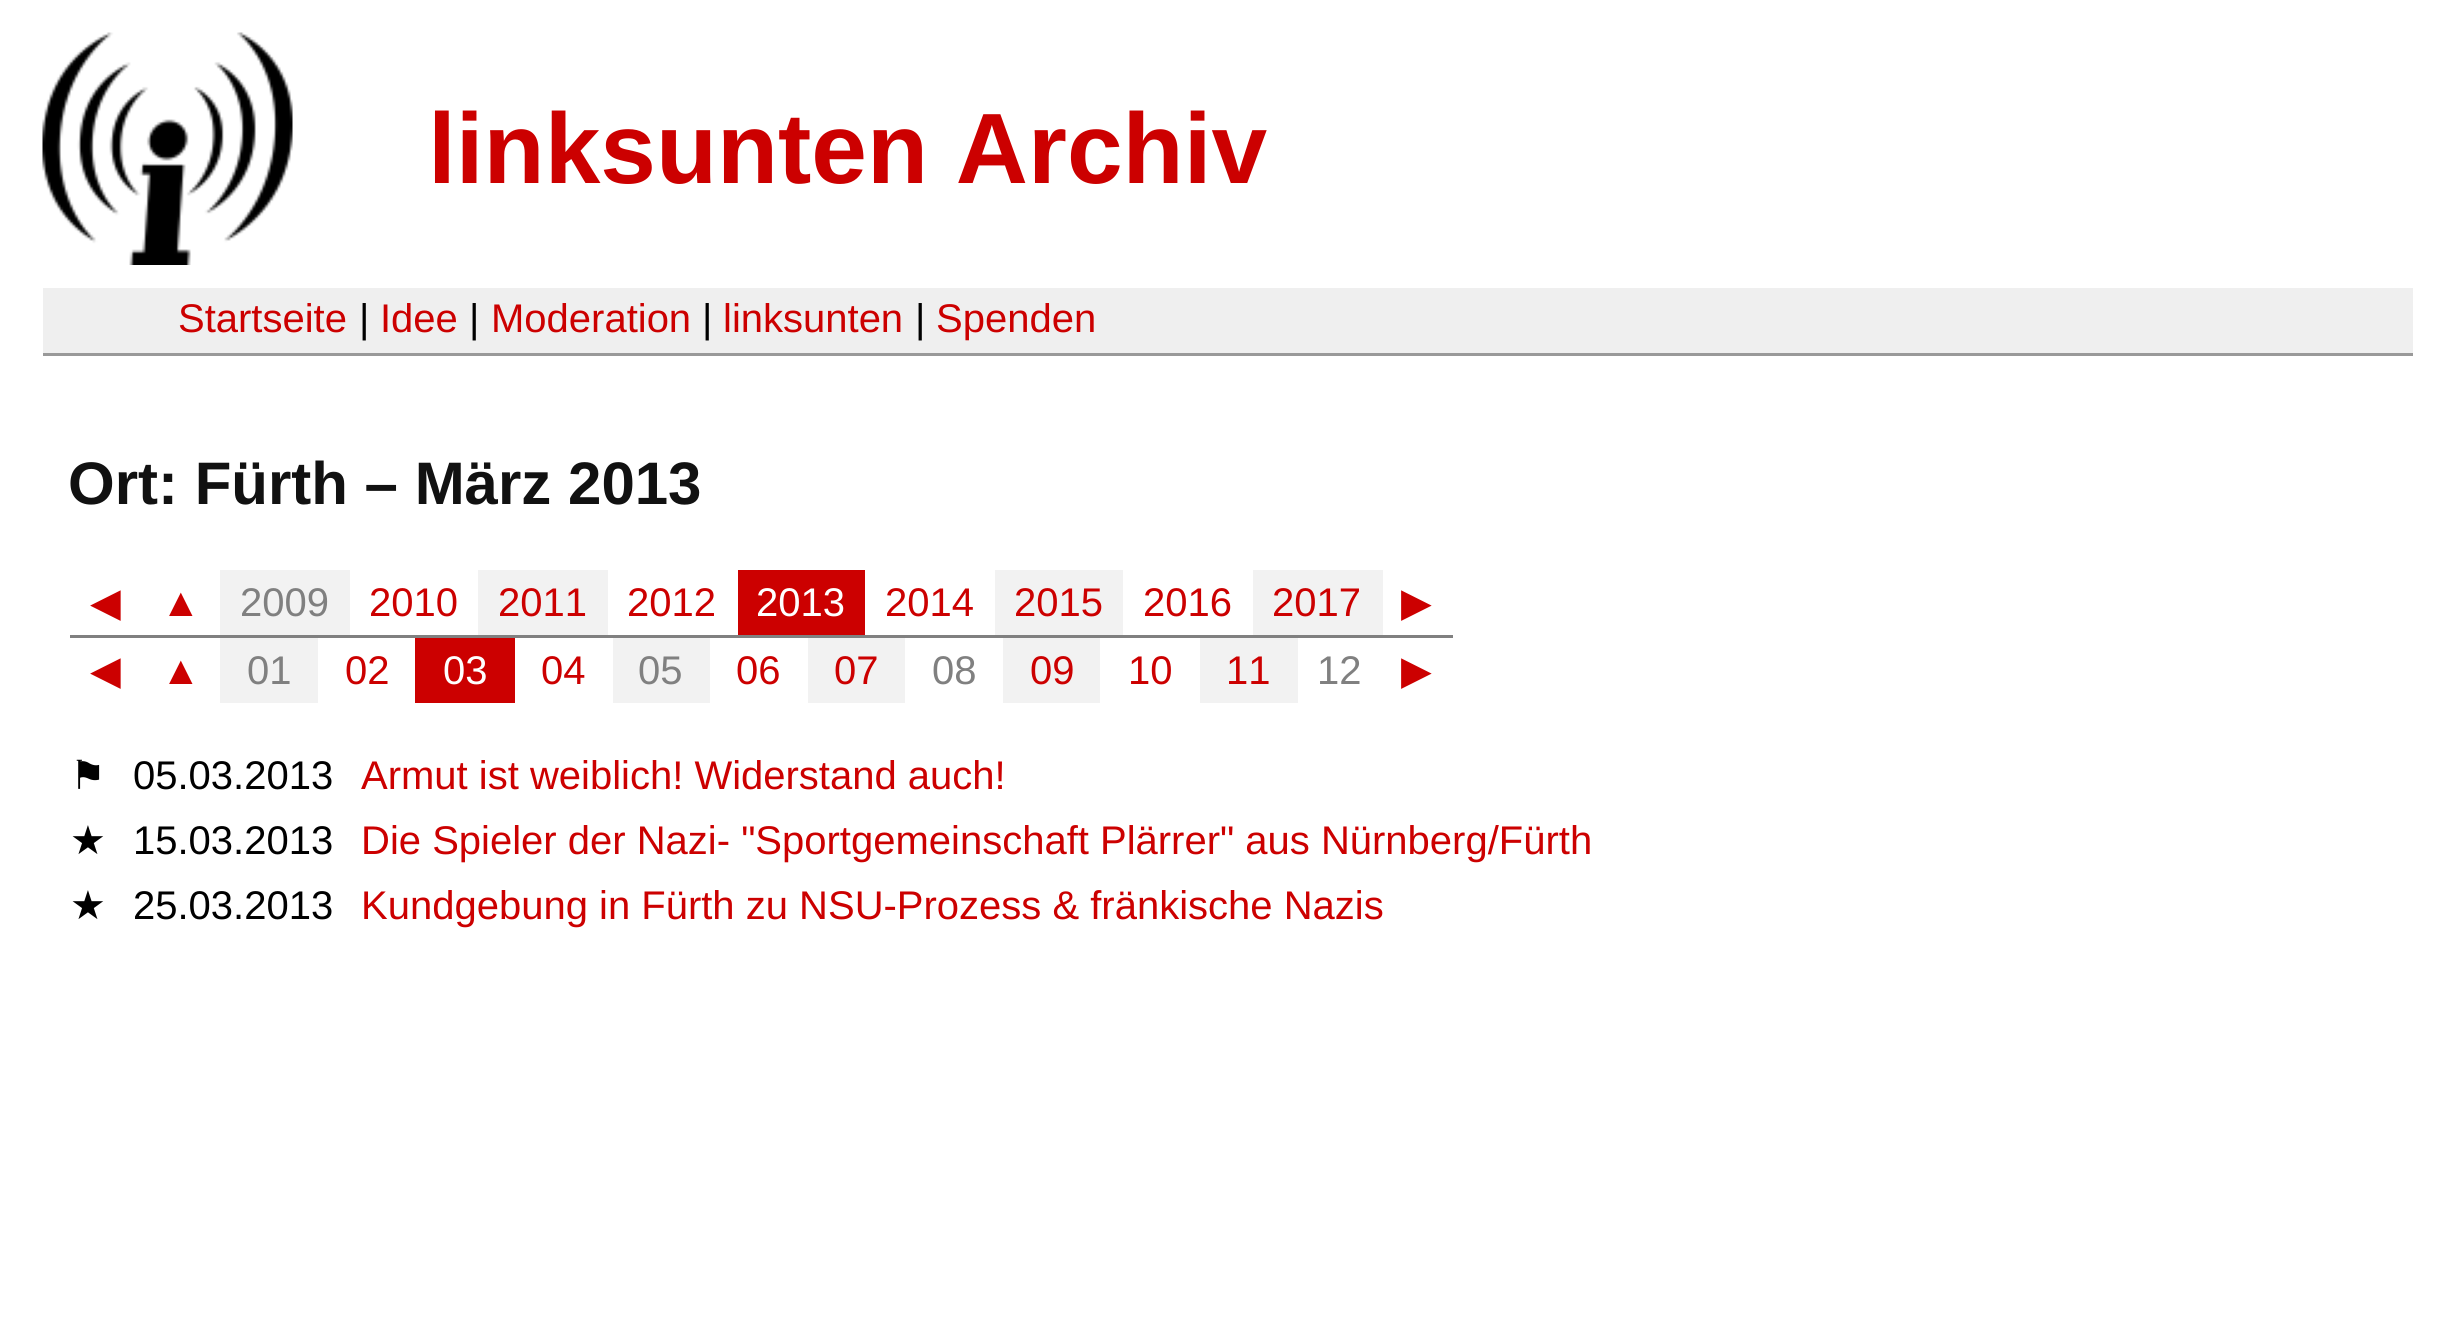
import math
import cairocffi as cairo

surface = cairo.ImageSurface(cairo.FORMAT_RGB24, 2455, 1320)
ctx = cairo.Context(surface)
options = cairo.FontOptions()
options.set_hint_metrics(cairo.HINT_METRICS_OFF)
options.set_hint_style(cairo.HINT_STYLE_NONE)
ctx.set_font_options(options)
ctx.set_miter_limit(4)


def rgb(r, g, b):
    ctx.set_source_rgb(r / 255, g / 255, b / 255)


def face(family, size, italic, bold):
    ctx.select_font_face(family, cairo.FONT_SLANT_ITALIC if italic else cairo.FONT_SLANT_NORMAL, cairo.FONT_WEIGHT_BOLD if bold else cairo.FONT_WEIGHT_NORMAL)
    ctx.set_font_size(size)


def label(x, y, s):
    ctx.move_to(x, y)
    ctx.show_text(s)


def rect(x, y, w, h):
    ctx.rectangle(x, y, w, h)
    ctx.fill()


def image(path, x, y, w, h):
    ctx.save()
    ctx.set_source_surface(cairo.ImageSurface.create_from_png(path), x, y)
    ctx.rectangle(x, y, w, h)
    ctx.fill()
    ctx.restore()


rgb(255, 255, 255)
ctx.paint()
image('image0.png', 42, 32, 251, 233)
face('Liberation Sans', 100, 0, 1)
rgb(204, 0, 0)
label(428, 183, 'linksunten Archiv')
rgb(239, 239, 239)
rect(43, 288, 2370, 65)
rgb(153, 153, 153)
rect(43, 353, 2370, 3)
face('Liberation Sans', 40, 0, 0)
rgb(204, 0, 0)
label(178, 332, 'Startseite')
rgb(0, 0, 0)
label(359, 332, '|')
rgb(204, 0, 0)
label(380, 332, 'Idee')
rgb(0, 0, 0)
label(469, 332, '|')
rgb(204, 0, 0)
label(491, 332, 'Moderation')
rgb(0, 0, 0)
label(702, 332, '|')
rgb(204, 0, 0)
label(723, 332, 'linksunten')
rgb(0, 0, 0)
label(915, 332, '|')
rgb(204, 0, 0)
label(936, 332, 'Spenden')
face('Liberation Sans', 60, 0, 1)
rgb(17, 17, 17)
label(68, 504, 'Ort: Fürth – März 2013')
rgb(128, 128, 128)
rect(70, 635, 1383, 3)
face('DejaVu Sans', 40, 0, 0)
rgb(204, 0, 0)
label(90, 616, '◀')
face('Liberation Sans', 40, 0, 0)
label(161, 616, '▲')
rgb(242, 242, 242)
rect(220, 570, 130, 65)
rgb(128, 128, 128)
label(240, 616, '2009')
rgb(204, 0, 0)
label(369, 616, '2010')
rgb(242, 242, 242)
rect(478, 570, 130, 65)
rgb(204, 0, 0)
label(498, 616, '2011')
label(627, 616, '2012')
rect(738, 570, 127, 65)
rgb(255, 255, 255)
label(756, 616, '2013')
rgb(204, 0, 0)
label(885, 616, '2014')
rgb(242, 242, 242)
rect(995, 570, 128, 65)
rgb(204, 0, 0)
label(1014, 616, '2015')
label(1143, 616, '2016')
rgb(242, 242, 242)
rect(1253, 570, 130, 65)
rgb(204, 0, 0)
label(1272, 616, '2017')
face('DejaVu Sans', 40, 0, 0)
label(1401, 616, '▶')
label(90, 684, '◀')
face('Liberation Sans', 40, 0, 0)
label(161, 684, '▲')
rgb(242, 242, 242)
rect(220, 638, 98, 65)
rgb(128, 128, 128)
label(247, 684, '01')
rgb(204, 0, 0)
label(345, 684, '02')
rect(415, 638, 100, 65)
rgb(255, 255, 255)
label(443, 684, '03')
rgb(204, 0, 0)
label(541, 684, '04')
rgb(242, 242, 242)
rect(613, 638, 97, 65)
rgb(128, 128, 128)
label(638, 684, '05')
rgb(204, 0, 0)
label(736, 684, '06')
rgb(242, 242, 242)
rect(808, 638, 97, 65)
rgb(204, 0, 0)
label(834, 684, '07')
rgb(128, 128, 128)
label(932, 684, '08')
rgb(242, 242, 242)
rect(1003, 638, 97, 65)
rgb(204, 0, 0)
label(1030, 684, '09')
label(1128, 684, '10')
rgb(242, 242, 242)
rect(1200, 638, 98, 65)
rgb(204, 0, 0)
label(1226, 684, '11')
rgb(128, 128, 128)
label(1317, 684, '12')
face('DejaVu Sans', 40, 0, 0)
rgb(204, 0, 0)
label(1401, 684, '▶')
rgb(0, 0, 0)
label(70, 789, '⚑')
face('Liberation Sans', 40, 0, 0)
label(133, 789, '05.03.2013')
rgb(204, 0, 0)
label(361, 789, 'Armut ist weiblich! Widerstand auch!')
face('DejaVu Sans', 40, 0, 0)
rgb(0, 0, 0)
label(70, 854, '★')
face('Liberation Sans', 40, 0, 0)
label(133, 854, '15.03.2013')
rgb(204, 0, 0)
label(361, 854, 'Die Spieler der Nazi- "Sportgemeinschaft Plärrer" aus Nürnberg/Fürth')
face('DejaVu Sans', 40, 0, 0)
rgb(0, 0, 0)
label(70, 919, '★')
face('Liberation Sans', 40, 0, 0)
label(133, 919, '25.03.2013')
rgb(204, 0, 0)
label(361, 919, 'Kundgebung in Fürth zu NSU-Prozess & fränkische Nazis')
surface.write_to_png('render.png')
